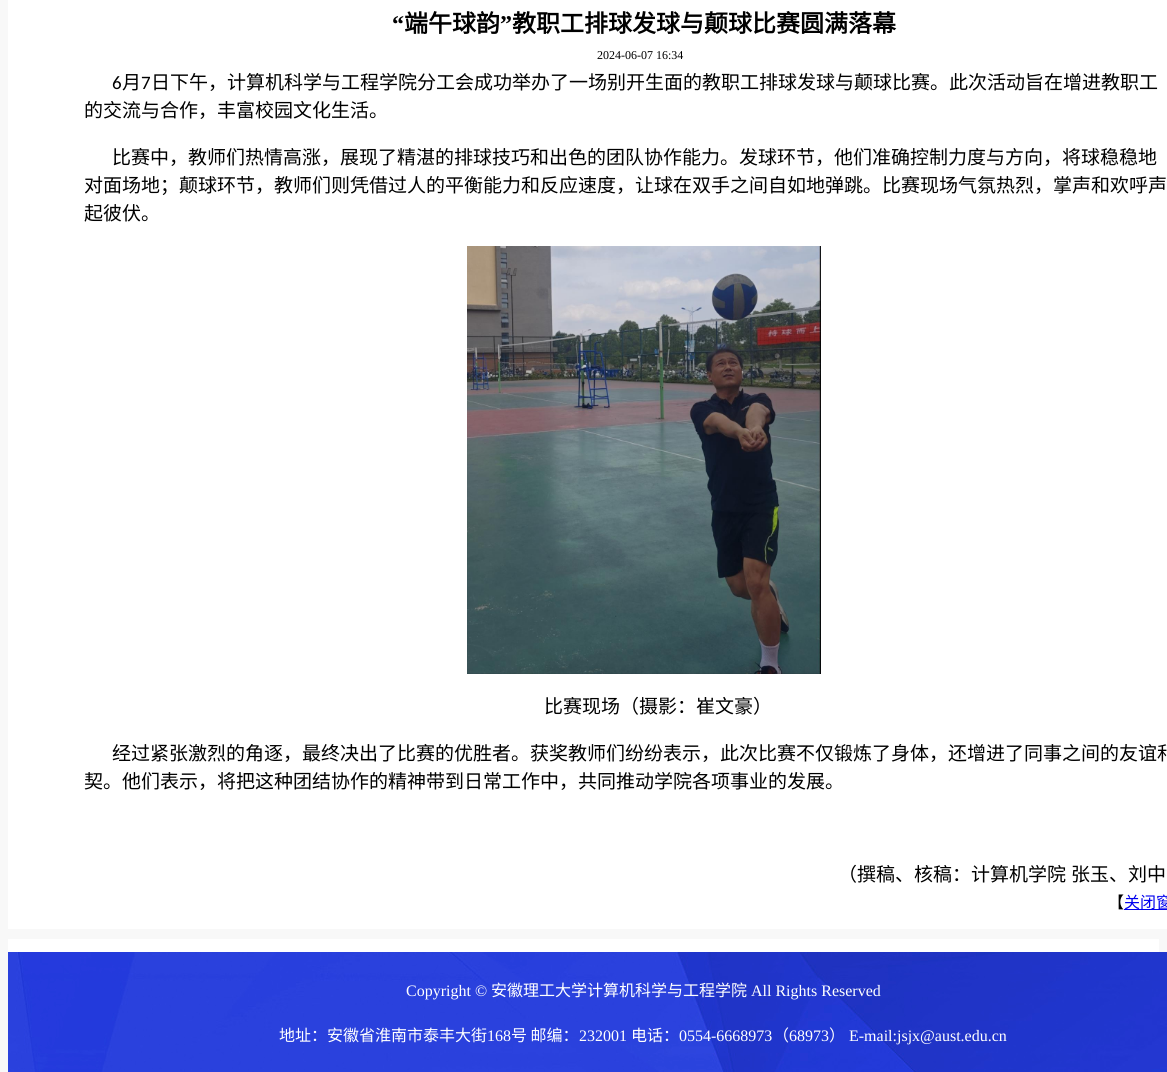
import math
import cairocffi as cairo

surface = cairo.ImageSurface(cairo.FORMAT_RGB24, 1167, 1072)
ctx = cairo.Context(surface)
options = cairo.FontOptions()
options.set_hint_metrics(cairo.HINT_METRICS_OFF)
options.set_hint_style(cairo.HINT_STYLE_NONE)
ctx.set_font_options(options)
ctx.set_miter_limit(4)


def rgb(r, g, b):
    ctx.set_source_rgb(r / 255, g / 255, b / 255)


def face(family, size, italic, bold):
    ctx.select_font_face(family, cairo.FONT_SLANT_ITALIC if italic else cairo.FONT_SLANT_NORMAL, cairo.FONT_WEIGHT_BOLD if bold else cairo.FONT_WEIGHT_NORMAL)
    ctx.set_font_size(size)


def label(x, y, s):
    ctx.move_to(x, y)
    ctx.show_text(s)


def rect(x, y, w, h):
    ctx.rectangle(x, y, w, h)
    ctx.fill()


def image(path, x, y, w, h):
    ctx.save()
    ctx.set_source_surface(cairo.ImageSurface.create_from_png(path), x, y)
    ctx.rectangle(x, y, w, h)
    ctx.fill()
    ctx.restore()


rgb(248, 248, 248)
ctx.paint()
rgb(255, 255, 255)
rect(8, 0, 1159, 929)
face('Liberation Serif', 24, 0, 1)
rgb(0, 0, 0)
label(392, 32, '“')
face('Noto Sans CJK SC', 24, 0, 1)
label(404, 32, '端午球韵')
face('Liberation Serif', 24, 0, 1)
label(500, 32, '”')
face('Noto Sans CJK SC', 24, 0, 1)
label(512, 32, '教职工排球发球与颠球比赛圆满落幕')
face('Liberation Serif', 12, 0, 0)
label(597, 59, '2024-06-07 16:34')
face('Carlito', 19, 0, 0)
label(112, 89, '6')
face('Noto Sans CJK SC', 19, 0, 0)
label(122, 89, '月')
face('Carlito', 19, 0, 0)
label(141, 89, '7')
face('Noto Sans CJK SC', 19, 0, 0)
label(151, 89, '日下午，计算机科学与工程学院分工会成功举办了一场别开生面的教职工排球发球与颠球比赛。此次活动旨在增进教职工')
label(84, 117, '的交流与合作，丰富校园文化生活。')
label(112, 164, '比赛中，教师们热情高涨，展现了精湛的排球技巧和出色的团队协作能力。发球环节，他们准确控制力度与方向，将球稳稳地')
label(84, 192, '对面场地；颠球环节，教师们则凭借过人的平衡能力和反应速度，让球在双手之间自如地弹跳。比赛现场气氛热烈，掌声和欢呼声')
label(84, 220, '起彼伏。')
image('image0.png', 467, 246, 354, 428)
label(544, 713, '比赛现场（摄影：崔文豪）')
label(112, 760, '经过紧张激烈的角逐，最终决出了比赛的优胜者。获奖教师们纷纷表示，此次比赛不仅锻炼了身体，还增进了同事之间的友谊和')
label(84, 788, '契。他们表示，将把这种团结协作的精神带到日常工作中，共同推动学院各项事业的发展。')
label(838, 881, '（撰稿、核稿：计算机学院')
label(1071, 881, '张玉、刘中')
face('Noto Sans CJK SC', 16, 0, 0)
label(1108, 908, '【')
rgb(0, 0, 238)
rect(1124, 909, 43, 1)
label(1124, 908, '关闭窗')
rgb(255, 255, 255)
rect(8, 939, 1151, 13)
image('image1.png', 8, 952, 1159, 120)
face('Liberation Serif', 16, 0, 0)
label(406, 996, 'Copyright ©')
face('Noto Sans CJK SC', 16, 0, 0)
label(491, 996, '安徽理工大学计算机科学与工程学院')
face('Liberation Serif', 16, 0, 0)
label(751, 996, 'All Rights Reserved')
face('Noto Sans CJK SC', 16, 0, 0)
label(279, 1041, '地址：安徽省淮南市泰丰大街')
face('Liberation Serif', 16, 0, 0)
label(487, 1041, '168')
face('Noto Sans CJK SC', 16, 0, 0)
label(511, 1041, '号 邮编：')
face('Liberation Serif', 16, 0, 0)
label(579, 1041, '232001')
face('Noto Sans CJK SC', 16, 0, 0)
label(631, 1041, '电话：')
face('Liberation Serif', 16, 0, 0)
label(679, 1041, '0554-6668973')
face('Noto Sans CJK SC', 16, 0, 0)
label(773, 1041, '（')
face('Liberation Serif', 16, 0, 0)
label(789, 1041, '68973')
face('Noto Sans CJK SC', 16, 0, 0)
label(829, 1041, '）')
face('Liberation Serif', 16, 0, 0)
label(849, 1041, 'E-mail:jsjx@aust.edu.cn')
surface.write_to_png('render.png')
